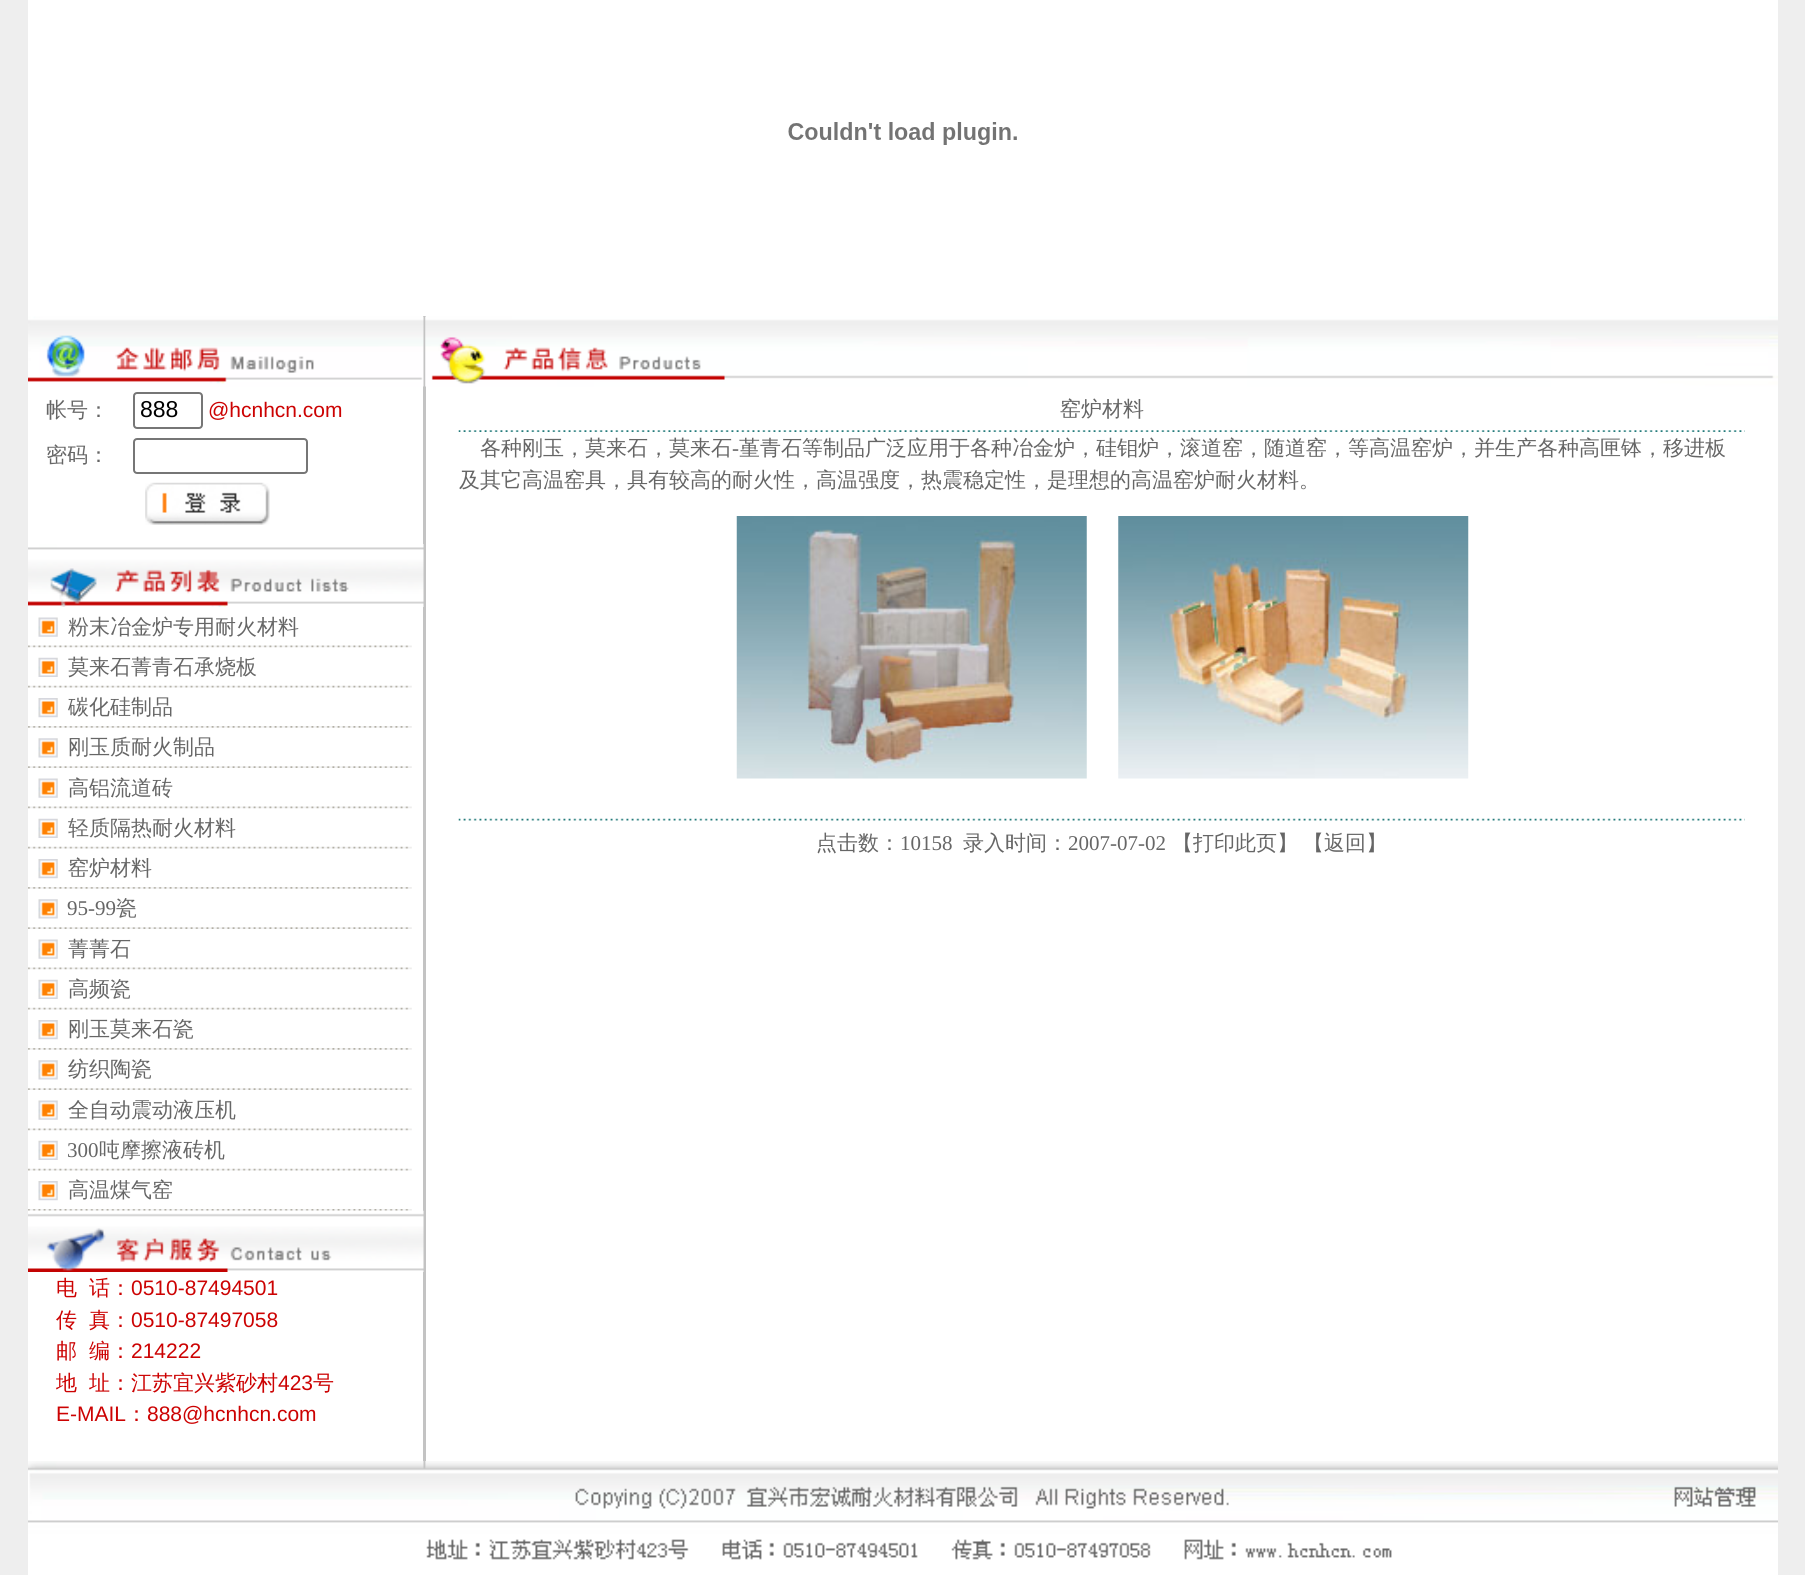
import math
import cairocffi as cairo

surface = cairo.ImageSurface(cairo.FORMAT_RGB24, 1805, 1575)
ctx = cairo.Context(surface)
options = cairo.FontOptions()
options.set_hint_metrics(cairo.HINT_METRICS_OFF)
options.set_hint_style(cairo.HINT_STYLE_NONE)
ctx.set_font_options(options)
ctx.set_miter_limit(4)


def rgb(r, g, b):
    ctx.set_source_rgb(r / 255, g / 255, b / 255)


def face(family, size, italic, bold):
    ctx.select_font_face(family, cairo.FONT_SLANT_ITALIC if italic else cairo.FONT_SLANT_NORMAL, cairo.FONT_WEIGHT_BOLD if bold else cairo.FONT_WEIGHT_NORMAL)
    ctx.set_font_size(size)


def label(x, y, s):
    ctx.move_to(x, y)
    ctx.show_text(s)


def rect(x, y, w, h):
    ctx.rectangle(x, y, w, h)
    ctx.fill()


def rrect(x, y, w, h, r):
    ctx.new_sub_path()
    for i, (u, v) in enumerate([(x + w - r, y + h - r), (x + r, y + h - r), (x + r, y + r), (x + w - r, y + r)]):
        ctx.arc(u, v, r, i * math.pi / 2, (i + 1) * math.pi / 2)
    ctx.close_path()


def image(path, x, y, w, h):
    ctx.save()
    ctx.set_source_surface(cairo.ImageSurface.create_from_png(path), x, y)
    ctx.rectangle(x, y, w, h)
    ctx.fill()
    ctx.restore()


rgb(238, 238, 238)
ctx.paint()
rgb(255, 255, 255)
rect(28, 0, 1750, 317)
image('image0.png', 788, 122, 229, 23)
rect(28, 386, 1750, 1075)
rgb(195, 195, 195)
rect(423, 316, 3, 1145)
image('image1.png', 28, 316, 396, 71)
face('WenQuanYi Zen Hei Medium', 21, 0, 0)
rgb(102, 102, 102)
label(46, 417, '帐号：')
rrect(134, 393, 68, 35, 3)
rgb(118, 118, 118)
ctx.stroke()
face('Liberation Sans', 23, 0, 0)
rgb(0, 0, 0)
label(140, 417, '888')
face('Liberation Sans', 21, 0, 0)
rgb(204, 2, 2)
label(208, 417, '@hcnhcn.com')
face('WenQuanYi Zen Hei Medium', 21, 0, 0)
rgb(102, 102, 102)
label(46, 462, '密码：')
rrect(134, 439, 173, 34, 3)
rgb(118, 118, 118)
ctx.stroke()
image('image2.png', 145, 482, 125, 43)
image('image3.png', 28, 544, 396, 63)
image('image4.png', 38, 617, 20, 20)
rgb(102, 102, 102)
label(68, 634, '粉末冶金炉专用耐火材料')
image('image5.png', 28, 645, 384, 3)
image('image6.png', 38, 657, 20, 20)
label(68, 674, '莫来石菁青石承烧板')
image('image7.png', 28, 685, 384, 3)
image('image8.png', 38, 698, 20, 20)
label(68, 714, '碳化硅制品')
image('image9.png', 28, 726, 384, 2)
image('image10.png', 38, 738, 20, 20)
label(68, 754, '刚玉质耐火制品')
image('image11.png', 28, 766, 384, 2)
image('image4.png', 38, 778, 20, 20)
label(68, 795, '高铝流道砖')
image('image5.png', 28, 806, 384, 3)
image('image6.png', 38, 818, 20, 20)
label(68, 835, '轻质隔热耐火材料')
image('image7.png', 28, 846, 384, 3)
image('image8.png', 38, 859, 20, 20)
label(68, 875, '窑炉材料')
image('image9.png', 28, 887, 384, 2)
image('image10.png', 38, 899, 20, 20)
face('Liberation Serif', 21, 0, 0)
label(67, 915, '95-99')
face('WenQuanYi Zen Hei Medium', 21, 0, 0)
label(116, 915, '瓷')
image('image11.png', 28, 927, 384, 2)
image('image4.png', 38, 939, 20, 20)
label(68, 956, '菁菁石')
image('image5.png', 28, 967, 384, 3)
image('image6.png', 38, 979, 20, 20)
label(68, 996, '高频瓷')
image('image7.png', 28, 1007, 384, 3)
image('image8.png', 38, 1020, 20, 20)
label(68, 1036, '刚玉莫来石瓷')
image('image9.png', 28, 1048, 384, 2)
image('image10.png', 38, 1060, 20, 20)
label(68, 1076, '纺织陶瓷')
image('image11.png', 28, 1088, 384, 2)
image('image4.png', 38, 1100, 20, 20)
label(68, 1117, '全自动震动液压机')
image('image5.png', 28, 1128, 384, 3)
image('image6.png', 38, 1140, 20, 20)
face('Liberation Serif', 21, 0, 0)
label(67, 1157, '300')
face('WenQuanYi Zen Hei Medium', 21, 0, 0)
label(99, 1157, '吨摩擦液砖机')
image('image7.png', 28, 1168, 384, 3)
image('image8.png', 38, 1181, 20, 20)
label(68, 1197, '高温煤气窑')
image('image9.png', 28, 1209, 384, 2)
image('image12.png', 28, 1210, 396, 62)
rgb(204, 2, 2)
label(56, 1295, '电')
label(89, 1295, '话：')
face('Liberation Sans', 21, 0, 0)
label(131, 1295, '0510-87494501')
face('WenQuanYi Zen Hei Medium', 21, 0, 0)
label(56, 1327, '传')
label(89, 1327, '真：')
face('Liberation Sans', 21, 0, 0)
label(131, 1327, '0510-87497058')
face('WenQuanYi Zen Hei Medium', 21, 0, 0)
label(56, 1358, '邮')
label(89, 1358, '编：')
face('Liberation Sans', 21, 0, 0)
label(131, 1358, '214222')
face('WenQuanYi Zen Hei Medium', 21, 0, 0)
label(56, 1390, '地')
label(89, 1390, '址：江苏宜兴紫砂村')
face('Liberation Sans', 21, 0, 0)
label(278, 1390, '423')
face('WenQuanYi Zen Hei Medium', 21, 0, 0)
label(313, 1390, '号')
face('Liberation Sans', 21, 0, 0)
label(56, 1421, 'E-MAIL')
face('WenQuanYi Zen Hei Medium', 21, 0, 0)
label(126, 1421, '：')
face('Liberation Sans', 21, 0, 0)
label(147, 1421, '888@hcnhcn.com')
image('image13.png', 425, 316, 1353, 71)
face('WenQuanYi Zen Hei Medium', 21, 0, 0)
rgb(102, 102, 102)
label(1060, 416, '窑炉材料')
image('image14.png', 458, 430, 1287, 2)
label(480, 455, '各种刚玉，莫来石，莫来石')
face('Liberation Serif', 21, 0, 0)
label(732, 455, '-')
face('WenQuanYi Zen Hei Medium', 21, 0, 0)
label(739, 455, '堇青石等制品广泛应用于各种冶金炉，硅钼炉，滚道窑，随道窑，等高温窑炉，并生产各种高匣钵，移进板')
label(459, 487, '及其它高温窑具，具有较高的耐火性，高温强度，热震稳定性，是理想的高温窑炉耐火材料。')
image('image15.png', 736, 516, 351, 263)
image('image16.png', 1118, 516, 351, 263)
image('image17.png', 458, 818, 1287, 3)
label(816, 850, '点击数：')
face('Liberation Serif', 21, 0, 0)
label(900, 850, '10158')
face('WenQuanYi Zen Hei Medium', 21, 0, 0)
label(963, 850, '录入时间：')
face('Liberation Serif', 21, 0, 0)
label(1068, 850, '2007-07-02')
face('WenQuanYi Zen Hei Medium', 21, 0, 0)
label(1172, 850, '【打印此页】')
label(1303, 850, '【返回】')
image('image18.png', 28, 1461, 1750, 114)
surface.write_to_png('render.png')
